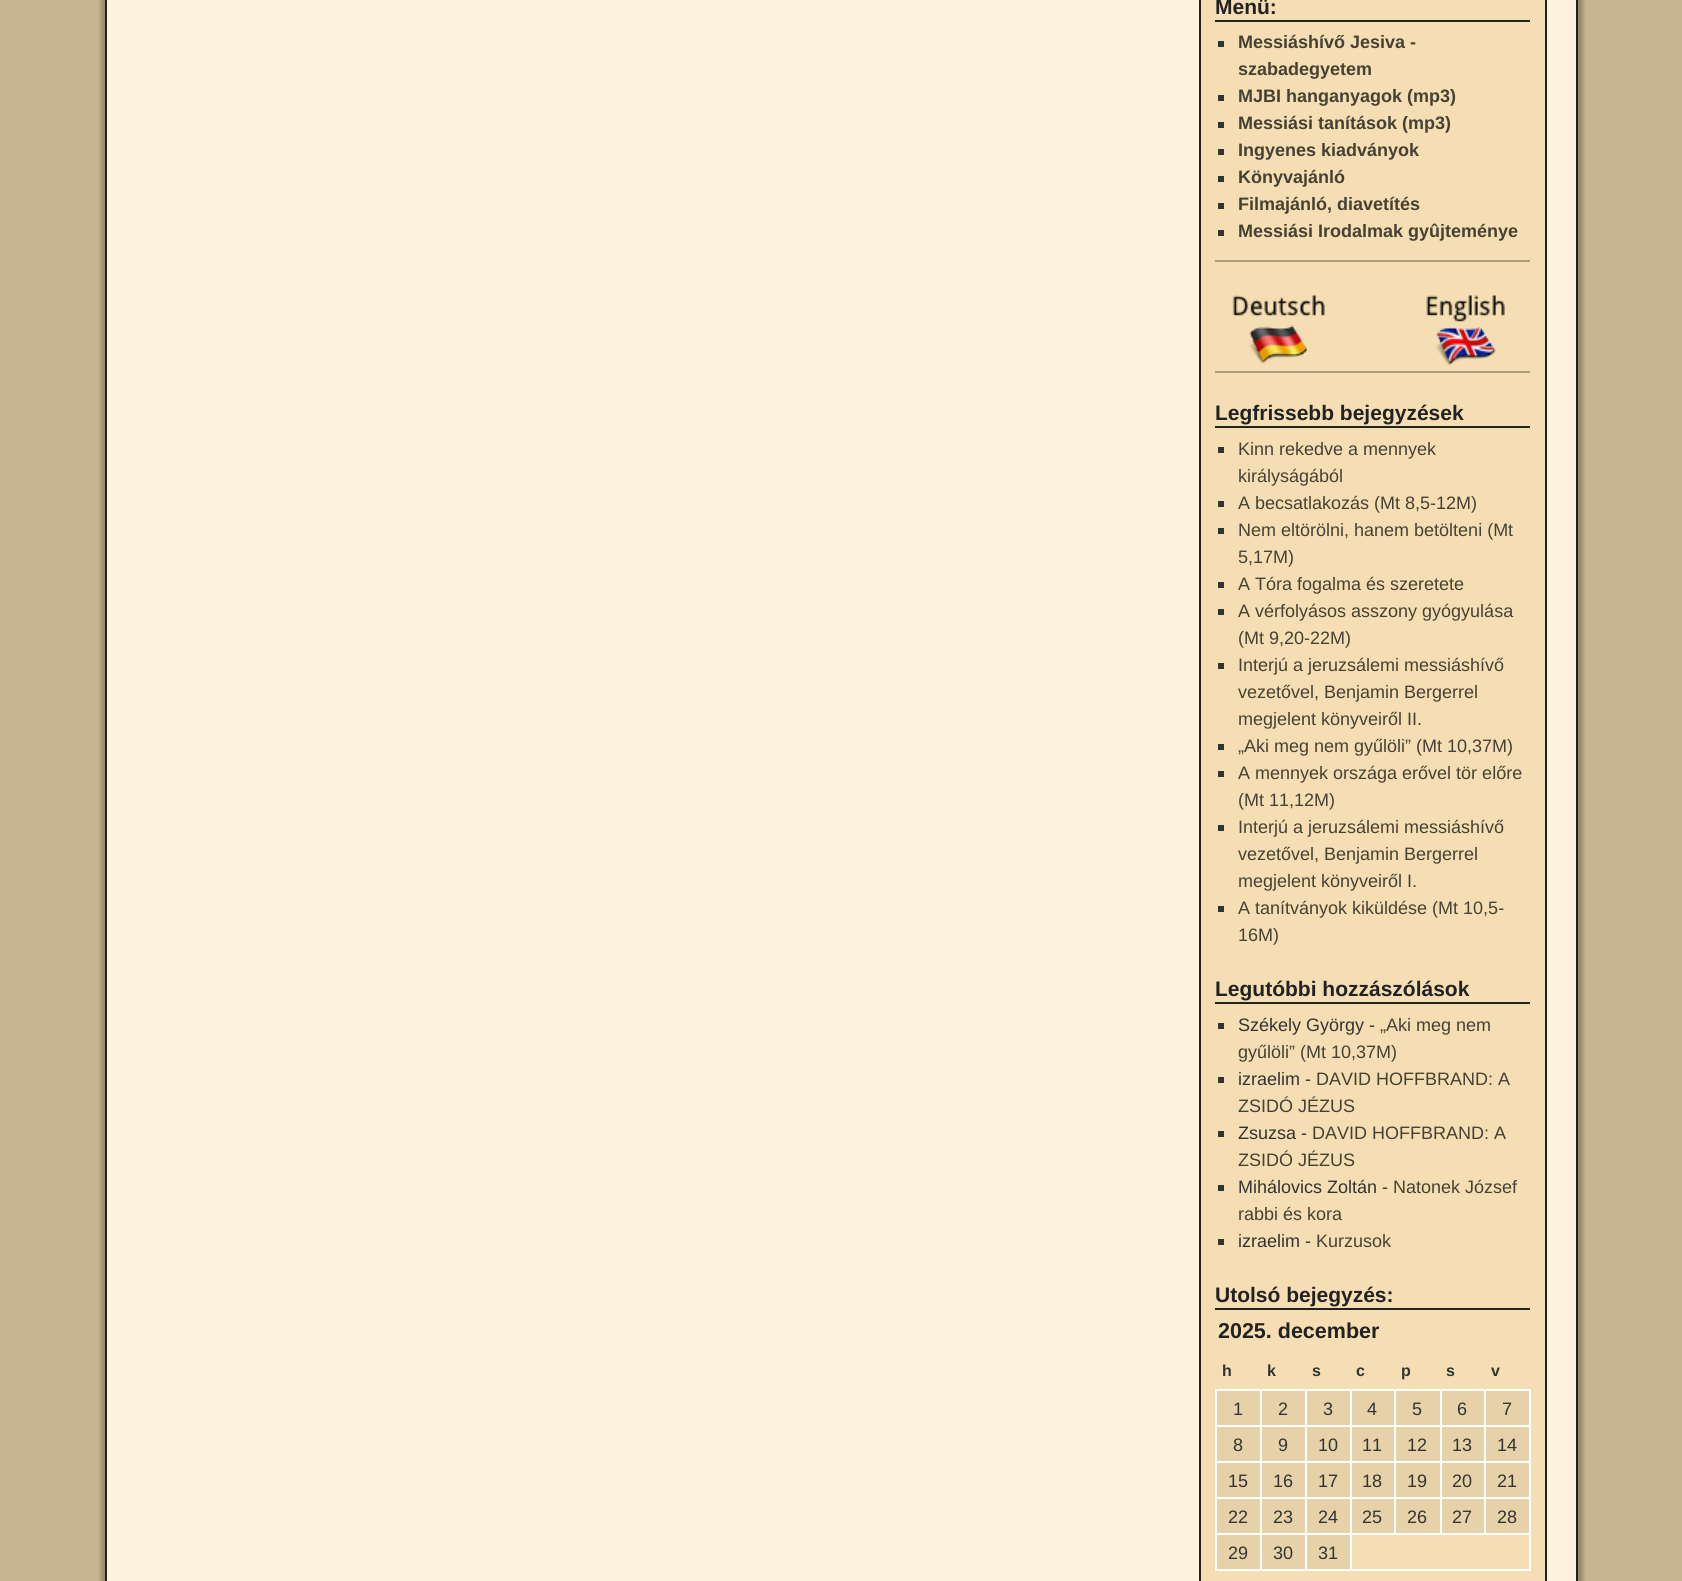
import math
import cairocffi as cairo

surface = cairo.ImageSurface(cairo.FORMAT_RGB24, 1682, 1581)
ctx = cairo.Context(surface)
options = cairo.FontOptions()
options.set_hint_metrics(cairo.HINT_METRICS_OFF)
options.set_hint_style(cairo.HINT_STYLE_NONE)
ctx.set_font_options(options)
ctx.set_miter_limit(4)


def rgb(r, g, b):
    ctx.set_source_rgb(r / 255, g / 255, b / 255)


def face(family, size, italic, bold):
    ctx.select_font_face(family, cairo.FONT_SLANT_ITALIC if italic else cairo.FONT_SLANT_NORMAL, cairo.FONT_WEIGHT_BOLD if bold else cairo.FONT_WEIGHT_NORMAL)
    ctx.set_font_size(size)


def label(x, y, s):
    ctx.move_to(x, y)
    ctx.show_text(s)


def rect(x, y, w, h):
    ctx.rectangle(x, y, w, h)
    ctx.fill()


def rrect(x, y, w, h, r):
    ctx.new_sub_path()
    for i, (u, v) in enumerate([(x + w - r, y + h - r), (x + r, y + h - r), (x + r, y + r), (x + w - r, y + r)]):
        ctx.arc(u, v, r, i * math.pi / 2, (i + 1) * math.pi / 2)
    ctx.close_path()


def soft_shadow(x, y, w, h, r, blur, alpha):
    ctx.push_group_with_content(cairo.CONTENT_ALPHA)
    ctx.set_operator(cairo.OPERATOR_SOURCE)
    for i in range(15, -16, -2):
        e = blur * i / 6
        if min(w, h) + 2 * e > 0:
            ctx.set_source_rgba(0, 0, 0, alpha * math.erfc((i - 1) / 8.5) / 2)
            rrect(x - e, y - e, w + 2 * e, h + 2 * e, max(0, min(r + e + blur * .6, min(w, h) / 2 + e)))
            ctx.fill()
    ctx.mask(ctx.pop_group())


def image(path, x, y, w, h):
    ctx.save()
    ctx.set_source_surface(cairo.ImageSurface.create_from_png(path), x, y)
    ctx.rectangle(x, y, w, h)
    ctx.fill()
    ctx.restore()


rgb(199, 180, 145)
ctx.paint()
rgb(0, 0, 0)
soft_shadow(101, -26, 1482, 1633, 20, 2, 0.25)
rgb(254, 243, 221)
ctx.rectangle(106, -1, 1471, 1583)
ctx.fill_preserve()
rgb(34, 34, 34)
ctx.stroke()
rgb(245, 222, 179)
ctx.rectangle(1200, -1, 346, 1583)
ctx.fill_preserve()
rgb(34, 34, 34)
ctx.stroke()
rect(1215, 20, 315, 2)
face('Liberation Sans', 21, 0, 1)
label(1215, 14, 'Menü:')
rgb(51, 51, 51)
rect(1218, 41, 6, 6)
face('Liberation Sans', 18, 0, 1)
rgb(71, 65, 52)
label(1238, 48, 'Messiáshívő Jesiva -')
label(1238, 75, 'szabadegyetem')
rgb(51, 51, 51)
rect(1218, 95, 6, 6)
rgb(71, 65, 52)
label(1238, 102, 'MJBI hanganyagok (mp3)')
rgb(51, 51, 51)
rect(1218, 122, 6, 6)
rgb(71, 65, 52)
label(1238, 129, 'Messiási tanítások (mp3)')
rgb(51, 51, 51)
rect(1218, 149, 6, 6)
rgb(71, 65, 52)
label(1238, 156, 'Ingyenes kiadványok')
rgb(51, 51, 51)
rect(1218, 176, 6, 6)
rgb(71, 65, 52)
label(1238, 183, 'Könyvajánló')
rgb(51, 51, 51)
rect(1218, 203, 6, 6)
rgb(71, 65, 52)
label(1238, 210, 'Filmajánló, diavetítés')
rgb(51, 51, 51)
rect(1218, 230, 6, 6)
rgb(71, 65, 52)
label(1238, 237, 'Messiási Irodalmak gyûjteménye')
rgb(171, 155, 125)
rect(1215, 260, 315, 2)
image('image0.png', 1232, 295, 93, 69)
image('image1.png', 1426, 295, 79, 70)
rect(1215, 371, 315, 2)
rgb(34, 34, 34)
rect(1215, 426, 315, 2)
face('Liberation Sans', 21, 0, 1)
label(1215, 420, 'Legfrissebb bejegyzések')
rgb(51, 51, 51)
rect(1218, 447, 6, 6)
face('Liberation Sans', 18, 0, 0)
rgb(71, 65, 52)
label(1238, 455, 'Kinn rekedve a mennyek')
label(1238, 482, 'királyságából')
rgb(51, 51, 51)
rect(1218, 501, 6, 6)
rgb(71, 65, 52)
label(1238, 509, 'A becsatlakozás (Mt 8,5-12M)')
rgb(51, 51, 51)
rect(1218, 528, 6, 6)
rgb(71, 65, 52)
label(1238, 536, 'Nem eltörölni, hanem betölteni (Mt')
label(1238, 563, '5,17M)')
rgb(51, 51, 51)
rect(1218, 582, 6, 6)
rgb(71, 65, 52)
label(1238, 590, 'A Tóra fogalma és szeretete')
rgb(51, 51, 51)
rect(1218, 609, 6, 6)
rgb(71, 65, 52)
label(1238, 617, 'A vérfolyásos asszony gyógyulása')
label(1238, 644, '(Mt 9,20-22M)')
rgb(51, 51, 51)
rect(1218, 663, 6, 6)
rgb(71, 65, 52)
label(1238, 671, 'Interjú a jeruzsálemi messiáshívő')
label(1238, 698, 'vezetővel, Benjamin Bergerrel')
label(1238, 725, 'megjelent könyveiről II.')
rgb(51, 51, 51)
rect(1218, 744, 6, 6)
rgb(71, 65, 52)
label(1238, 752, '„Aki meg nem gyűlöli” (Mt 10,37M)')
rgb(51, 51, 51)
rect(1218, 771, 6, 6)
rgb(71, 65, 52)
label(1238, 779, 'A mennyek országa erővel tör előre')
label(1238, 806, '(Mt 11,12M)')
rgb(51, 51, 51)
rect(1218, 825, 6, 6)
rgb(71, 65, 52)
label(1238, 833, 'Interjú a jeruzsálemi messiáshívő')
label(1238, 860, 'vezetővel, Benjamin Bergerrel')
label(1238, 887, 'megjelent könyveiről I.')
rgb(51, 51, 51)
rect(1218, 906, 6, 6)
rgb(71, 65, 52)
label(1238, 914, 'A tanítványok kiküldése (Mt 10,5-')
label(1238, 941, '16M)')
rgb(34, 34, 34)
rect(1215, 1002, 315, 2)
face('Liberation Sans', 21, 0, 1)
label(1215, 996, 'Legutóbbi hozzászólások')
rgb(51, 51, 51)
rect(1218, 1023, 6, 6)
face('Liberation Sans', 18, 0, 0)
label(1238, 1031, 'Székely György -')
rgb(71, 65, 52)
label(1380, 1031, '„Aki meg nem')
label(1238, 1058, 'gyűlöli” (Mt 10,37M)')
rgb(51, 51, 51)
rect(1218, 1077, 6, 6)
label(1238, 1085, 'izraelim -')
rgb(71, 65, 52)
label(1316, 1085, 'DAVID HOFFBRAND: A')
label(1238, 1112, 'ZSIDÓ JÉZUS')
rgb(51, 51, 51)
rect(1218, 1131, 6, 6)
label(1238, 1139, 'Zsuzsa -')
rgb(71, 65, 52)
label(1312, 1139, 'DAVID HOFFBRAND: A')
label(1238, 1166, 'ZSIDÓ JÉZUS')
rgb(51, 51, 51)
rect(1218, 1185, 6, 6)
label(1238, 1193, 'Mihálovics Zoltán -')
rgb(71, 65, 52)
label(1393, 1193, 'Natonek József')
label(1238, 1220, 'rabbi és kora')
rgb(51, 51, 51)
rect(1218, 1239, 6, 6)
label(1238, 1247, 'izraelim -')
rgb(71, 65, 52)
label(1316, 1247, 'Kurzusok')
rgb(34, 34, 34)
rect(1215, 1308, 315, 2)
face('Liberation Sans', 21, 0, 1)
label(1215, 1302, 'Utolsó bejegyzés:')
face('Liberation Sans', 21.5, 0, 1)
label(1218, 1338, '2025. december')
face('Liberation Sans', 16, 0, 1)
rgb(51, 51, 51)
label(1222, 1376, 'h')
label(1267, 1376, 'k')
label(1312, 1376, 's')
label(1356, 1376, 'c')
label(1401, 1376, 'p')
label(1446, 1376, 's')
label(1491, 1376, 'v')
rgb(230, 209, 168)
rect(1217, 1391, 43, 34)
rgb(255, 255, 255)
rect(1484, 1389, 46, 2)
rect(1484, 1425, 46, 2)
rect(1484, 1461, 46, 2)
rect(1484, 1497, 46, 2)
rect(1350, 1533, 180, 2)
rect(1484, 1497, 2, 38)
rect(1440, 1497, 45, 2)
rect(1484, 1461, 2, 38)
rect(1440, 1461, 45, 2)
rect(1484, 1425, 2, 38)
rect(1440, 1425, 45, 2)
rect(1484, 1389, 2, 38)
rect(1440, 1389, 45, 2)
rect(1440, 1497, 2, 38)
rect(1394, 1497, 48, 2)
rect(1440, 1461, 2, 38)
rect(1394, 1461, 48, 2)
rect(1440, 1425, 2, 38)
rect(1394, 1425, 48, 2)
rect(1440, 1389, 2, 38)
rect(1394, 1389, 48, 2)
rect(1394, 1497, 2, 38)
rect(1350, 1497, 45, 2)
rect(1394, 1461, 2, 38)
rect(1350, 1461, 45, 2)
rect(1394, 1425, 2, 38)
rect(1350, 1425, 45, 2)
rect(1394, 1389, 2, 38)
rect(1350, 1389, 45, 2)
rect(1529, 1533, 2, 38)
rect(1350, 1569, 180, 2)
rect(1350, 1533, 2, 38)
rect(1305, 1533, 47, 2)
rect(1350, 1497, 2, 38)
rect(1305, 1497, 47, 2)
rect(1350, 1461, 2, 38)
rect(1305, 1461, 47, 2)
rect(1350, 1425, 2, 38)
rect(1305, 1425, 47, 2)
rect(1350, 1389, 2, 38)
rect(1305, 1389, 47, 2)
rect(1305, 1569, 47, 2)
rect(1305, 1533, 2, 38)
rect(1260, 1533, 47, 2)
rect(1305, 1497, 2, 38)
rect(1260, 1497, 47, 2)
rect(1305, 1461, 2, 38)
rect(1260, 1461, 47, 2)
rect(1305, 1425, 2, 38)
rect(1260, 1425, 47, 2)
rect(1305, 1389, 2, 38)
rect(1260, 1389, 47, 2)
rect(1260, 1569, 47, 2)
rect(1260, 1533, 2, 38)
rect(1215, 1533, 47, 2)
rect(1260, 1497, 2, 38)
rect(1215, 1497, 47, 2)
rect(1260, 1461, 2, 38)
rect(1215, 1461, 47, 2)
rect(1260, 1425, 2, 38)
rect(1215, 1425, 47, 2)
rect(1260, 1389, 2, 38)
rect(1215, 1389, 47, 2)
rect(1215, 1569, 47, 2)
rect(1215, 1533, 2, 38)
rect(1215, 1497, 2, 38)
rect(1215, 1461, 2, 38)
rect(1215, 1425, 2, 38)
rect(1215, 1389, 2, 38)
face('Liberation Sans', 18, 0, 0)
rgb(51, 51, 51)
label(1233, 1415, '1')
rgb(230, 209, 168)
rect(1262, 1391, 43, 34)
rgb(51, 51, 51)
label(1278, 1415, '2')
rgb(230, 209, 168)
rect(1307, 1391, 43, 34)
rgb(51, 51, 51)
label(1323, 1415, '3')
rgb(230, 209, 168)
rect(1352, 1391, 42, 34)
rgb(51, 51, 51)
label(1367, 1415, '4')
rgb(230, 209, 168)
rect(1396, 1391, 44, 34)
rgb(51, 51, 51)
label(1412, 1415, '5')
rgb(230, 209, 168)
rect(1442, 1391, 42, 34)
rgb(51, 51, 51)
label(1457, 1415, '6')
rgb(230, 209, 168)
rect(1486, 1391, 43, 34)
rgb(255, 255, 255)
rect(1529, 1497, 2, 38)
rect(1529, 1461, 2, 38)
rect(1529, 1425, 2, 38)
rect(1529, 1389, 2, 38)
rgb(51, 51, 51)
label(1502, 1415, '7')
rgb(230, 209, 168)
rect(1217, 1427, 43, 34)
rgb(51, 51, 51)
label(1233, 1451, '8')
rgb(230, 209, 168)
rect(1262, 1427, 43, 34)
rgb(51, 51, 51)
label(1278, 1451, '9')
rgb(230, 209, 168)
rect(1307, 1427, 43, 34)
rgb(51, 51, 51)
label(1318, 1451, '10')
rgb(230, 209, 168)
rect(1352, 1427, 42, 34)
rgb(51, 51, 51)
label(1362, 1451, '11')
rgb(230, 209, 168)
rect(1396, 1427, 44, 34)
rgb(51, 51, 51)
label(1407, 1451, '12')
rgb(230, 209, 168)
rect(1442, 1427, 42, 34)
rgb(51, 51, 51)
label(1452, 1451, '13')
rgb(230, 209, 168)
rect(1486, 1427, 43, 34)
rgb(51, 51, 51)
label(1497, 1451, '14')
rgb(230, 209, 168)
rect(1217, 1463, 43, 34)
rgb(51, 51, 51)
label(1228, 1487, '15')
rgb(230, 209, 168)
rect(1262, 1463, 43, 34)
rgb(51, 51, 51)
label(1273, 1487, '16')
rgb(230, 209, 168)
rect(1307, 1463, 43, 34)
rgb(51, 51, 51)
label(1318, 1487, '17')
rgb(230, 209, 168)
rect(1352, 1463, 42, 34)
rgb(51, 51, 51)
label(1362, 1487, '18')
rgb(230, 209, 168)
rect(1396, 1463, 44, 34)
rgb(51, 51, 51)
label(1407, 1487, '19')
rgb(230, 209, 168)
rect(1442, 1463, 42, 34)
rgb(51, 51, 51)
label(1452, 1487, '20')
rgb(230, 209, 168)
rect(1486, 1463, 43, 34)
rgb(51, 51, 51)
label(1497, 1487, '21')
rgb(230, 209, 168)
rect(1217, 1499, 43, 34)
rgb(51, 51, 51)
label(1228, 1523, '22')
rgb(230, 209, 168)
rect(1262, 1499, 43, 34)
rgb(51, 51, 51)
label(1273, 1523, '23')
rgb(230, 209, 168)
rect(1307, 1499, 43, 34)
rgb(51, 51, 51)
label(1318, 1523, '24')
rgb(230, 209, 168)
rect(1352, 1499, 42, 34)
rgb(51, 51, 51)
label(1362, 1523, '25')
rgb(230, 209, 168)
rect(1396, 1499, 44, 34)
rgb(51, 51, 51)
label(1407, 1523, '26')
rgb(230, 209, 168)
rect(1442, 1499, 42, 34)
rgb(51, 51, 51)
label(1452, 1523, '27')
rgb(230, 209, 168)
rect(1486, 1499, 43, 34)
rgb(51, 51, 51)
label(1497, 1523, '28')
rgb(230, 209, 168)
rect(1217, 1535, 43, 34)
rgb(51, 51, 51)
label(1228, 1559, '29')
rgb(230, 209, 168)
rect(1262, 1535, 43, 34)
rgb(51, 51, 51)
label(1273, 1559, '30')
rgb(230, 209, 168)
rect(1307, 1535, 43, 34)
rgb(51, 51, 51)
label(1318, 1559, '31')
surface.write_to_png('render.png')
